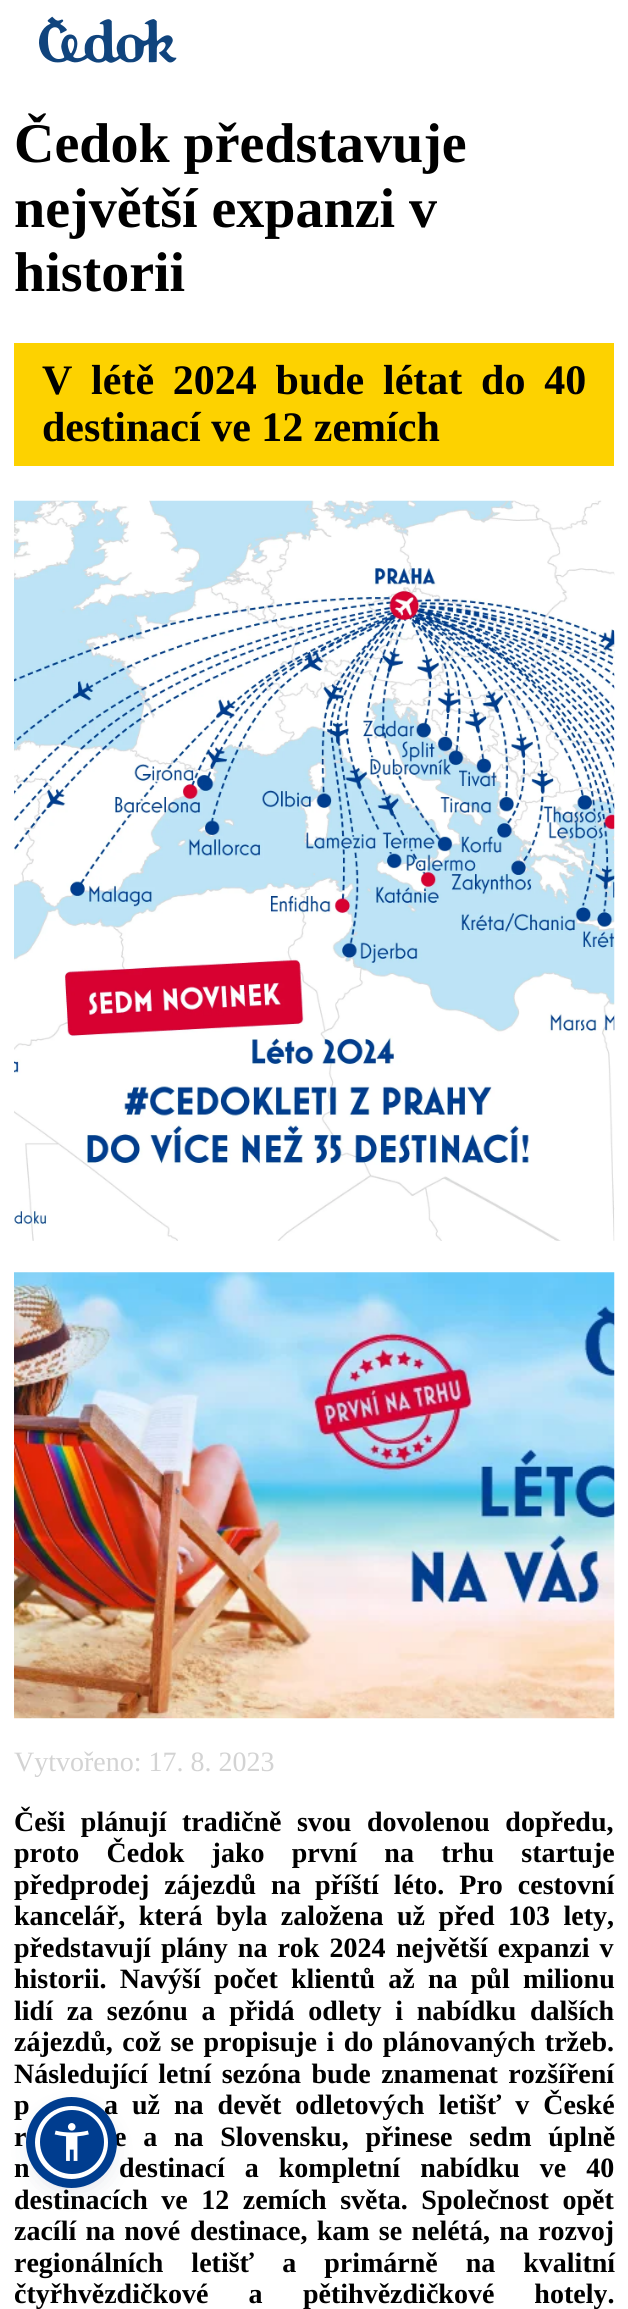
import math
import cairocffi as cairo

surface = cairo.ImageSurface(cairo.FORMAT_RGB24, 628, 2309)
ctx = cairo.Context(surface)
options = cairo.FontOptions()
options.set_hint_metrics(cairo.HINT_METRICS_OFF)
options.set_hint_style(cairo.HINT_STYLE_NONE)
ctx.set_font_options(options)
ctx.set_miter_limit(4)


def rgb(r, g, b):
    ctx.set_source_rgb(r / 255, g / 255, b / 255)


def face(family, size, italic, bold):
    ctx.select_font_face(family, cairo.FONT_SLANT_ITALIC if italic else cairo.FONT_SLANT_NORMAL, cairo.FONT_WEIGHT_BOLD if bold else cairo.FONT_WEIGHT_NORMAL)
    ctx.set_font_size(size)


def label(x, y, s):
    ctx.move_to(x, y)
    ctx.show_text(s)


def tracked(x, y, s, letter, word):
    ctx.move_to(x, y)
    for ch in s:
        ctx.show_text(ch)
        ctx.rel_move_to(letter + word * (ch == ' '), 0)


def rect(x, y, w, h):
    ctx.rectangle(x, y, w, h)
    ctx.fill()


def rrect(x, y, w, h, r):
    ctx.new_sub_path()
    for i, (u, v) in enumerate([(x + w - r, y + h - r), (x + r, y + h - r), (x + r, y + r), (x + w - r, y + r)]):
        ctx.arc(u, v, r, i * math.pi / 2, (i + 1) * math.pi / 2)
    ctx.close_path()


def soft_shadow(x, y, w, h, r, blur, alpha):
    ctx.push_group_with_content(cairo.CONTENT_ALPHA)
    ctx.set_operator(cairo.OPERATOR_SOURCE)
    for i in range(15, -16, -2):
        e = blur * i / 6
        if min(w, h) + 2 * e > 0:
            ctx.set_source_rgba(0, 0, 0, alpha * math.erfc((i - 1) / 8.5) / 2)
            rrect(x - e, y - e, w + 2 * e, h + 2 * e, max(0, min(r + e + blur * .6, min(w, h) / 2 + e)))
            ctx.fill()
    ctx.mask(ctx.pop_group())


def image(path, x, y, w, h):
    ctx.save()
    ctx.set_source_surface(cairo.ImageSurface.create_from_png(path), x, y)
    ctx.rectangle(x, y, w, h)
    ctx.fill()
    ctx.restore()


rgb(255, 255, 255)
ctx.paint()
image('image0.png', 39, 16, 138, 47)
face('Liberation Serif', 56, 0, 1)
rgb(0, 0, 0)
label(14, 162, 'Čedok představuje')
label(14, 227, 'největší expanzi v')
label(14, 291, 'historii')
rgb(253, 210, 0)
rect(14, 343, 600, 123)
face('Liberation Serif', 42, 0, 1)
rgb(0, 0, 0)
tracked(42, 394, 'V létě 2024 bude létat do 40', 0, 8.25)
label(42, 441, 'destinací ve 12 zemích')
image('image1.png', 14, 500, 601, 741)
image('image2.png', 14, 1272, 601, 447)
face('Liberation Serif', 28, 0, 0)
rgb(211, 211, 211)
label(14, 1771, 'Vytvořeno: 17. 8. 2023')
face('Liberation Serif', 28, 0, 1)
rgb(0, 0, 0)
tracked(14, 1831, 'Češi plánují tradičně svou dovolenou dopředu,', 0, 8.5)
tracked(14, 1862, 'proto Čedok jako první na trhu startuje', 0, 20.25)
tracked(14, 1894, 'předprodej zájezdů na', 0, 8)
tracked(315, 1894, 'příští léto. Pro cestovní', 0, 8)
tracked(14, 1925, 'kancelář, která byla založena už před 103 lety,', 0, 6.5)
tracked(14, 1957, 'představují plány na rok 2024', 0, 3)
tracked(396, 1957, 'největší expanzi v', 0, 3)
tracked(14, 1988, 'historii. Navýší počet klientů až na půl milionu', 0, 6.25)
tracked(14, 2020, 'lidí za sezónu a přidá odlety i nabídku', 0, 6.75)
label(530, 2020, 'dalších')
tracked(14, 2051, 'zájezdů, což se propisuje i do plánovaných tržeb.', 0, 2.5)
tracked(14, 2083, 'Následující letní sezóna bude znamenat rozšíření', 0, 3.5)
tracked(14, 2114, 'p', 0, 7)
tracked(104, 2114, 'a už na devět odletových letišť v České', 0, 7)
tracked(14, 2146, 'r', 0, 9.75)
tracked(114, 2146, 'e a na Slovensku, přinese sedm úplně', 0, 9.75)
label(14, 2177, 'n')
tracked(119, 2177, 'destinací a kompletní nabídku ve 40', 0, 13)
tracked(14, 2209, 'destinacích ve 12 zemích světa. Společnost opět', 0, 6.5)
tracked(14, 2240, 'zacílí na nové', 0, 2.25)
tracked(190, 2240, 'destinace, kam se nelétá, na rozvoj', 0, 2.25)
tracked(14, 2272, 'regionálních letišť a primárně na kvalitní', 0, 21)
tracked(14, 2303, 'čtyřhvězdičkové a', 0, 33)
tracked(303, 2303, 'pětihvězdičkové hotely.', 0, 33)
rgb(93, 100, 148)
soft_shadow(35, 2109, 74, 73, 36.5, 3.5, 0.2)
rgb(37, 44, 97)
soft_shadow(35, 2114, 74, 74, 37, 13, 0.15)
rgb(0, 61, 143)
ctx.arc(72, 2142, 34.5, 0, 2 * math.pi)
ctx.fill_preserve()
rgb(255, 255, 255)
ctx.set_line_width(5)
ctx.stroke()
ctx.arc(71.5, 2142.5, 41, 0, 2 * math.pi)
rgb(0, 61, 143)
ctx.set_line_width(9)
ctx.stroke()
image('image3.png', 54, 2123, 35, 38)
surface.write_to_png('render.png')
